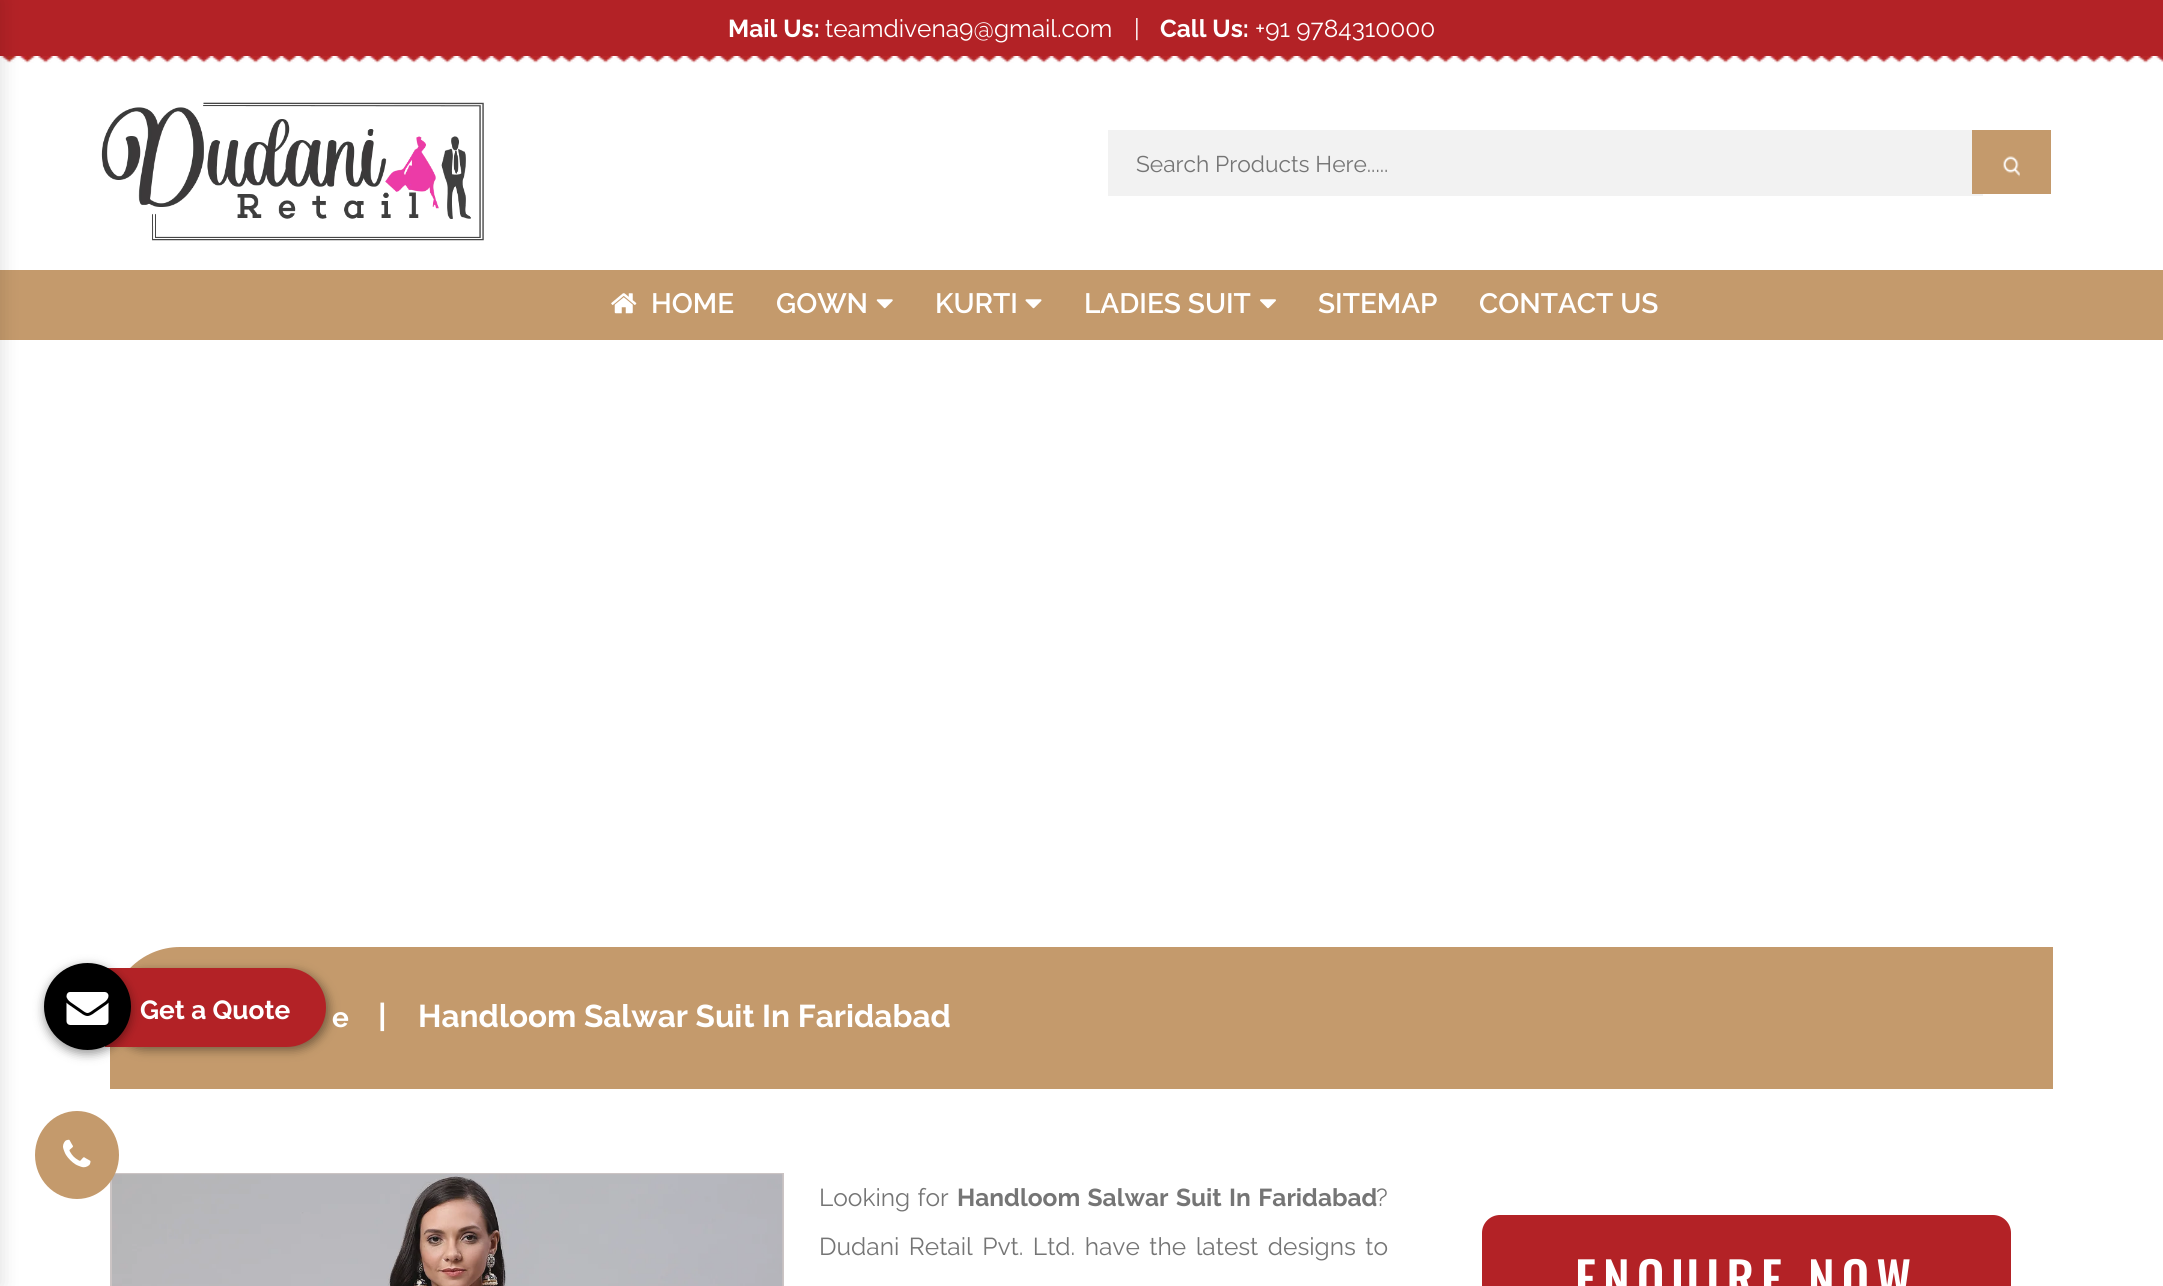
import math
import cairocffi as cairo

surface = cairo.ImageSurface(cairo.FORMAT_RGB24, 2163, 1286)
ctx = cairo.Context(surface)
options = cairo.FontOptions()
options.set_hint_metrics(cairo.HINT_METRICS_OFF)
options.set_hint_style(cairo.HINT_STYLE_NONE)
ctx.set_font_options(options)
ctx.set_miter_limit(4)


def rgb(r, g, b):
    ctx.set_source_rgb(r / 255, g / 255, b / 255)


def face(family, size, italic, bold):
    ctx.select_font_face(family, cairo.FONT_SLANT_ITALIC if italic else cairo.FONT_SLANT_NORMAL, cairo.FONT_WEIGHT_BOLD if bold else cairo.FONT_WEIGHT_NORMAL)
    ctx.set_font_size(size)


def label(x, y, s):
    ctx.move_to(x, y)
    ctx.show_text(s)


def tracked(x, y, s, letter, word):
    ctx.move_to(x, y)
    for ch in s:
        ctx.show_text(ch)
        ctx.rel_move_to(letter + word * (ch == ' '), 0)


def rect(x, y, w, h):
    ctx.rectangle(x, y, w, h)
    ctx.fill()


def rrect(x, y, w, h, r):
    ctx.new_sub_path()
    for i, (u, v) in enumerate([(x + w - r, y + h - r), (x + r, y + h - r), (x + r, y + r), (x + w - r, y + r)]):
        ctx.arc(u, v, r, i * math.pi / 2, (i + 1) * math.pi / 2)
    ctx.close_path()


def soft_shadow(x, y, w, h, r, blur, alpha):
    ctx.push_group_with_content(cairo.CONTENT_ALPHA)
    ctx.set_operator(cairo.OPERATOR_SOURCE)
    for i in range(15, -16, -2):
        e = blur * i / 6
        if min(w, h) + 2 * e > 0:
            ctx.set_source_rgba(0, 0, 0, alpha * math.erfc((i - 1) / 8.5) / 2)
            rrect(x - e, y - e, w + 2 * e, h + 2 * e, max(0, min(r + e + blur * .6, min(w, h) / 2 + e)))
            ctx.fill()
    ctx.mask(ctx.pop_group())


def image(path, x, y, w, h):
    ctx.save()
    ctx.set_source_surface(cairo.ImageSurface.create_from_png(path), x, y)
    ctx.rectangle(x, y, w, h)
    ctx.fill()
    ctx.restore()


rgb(255, 255, 255)
ctx.paint()
rgb(179, 34, 38)
rect(0, 0, 2163, 56)
image('image0.png', 1, 56, 2162, 7)
rgb(196, 154, 108)
rect(0, 270, 2163, 70)
rgb(0, 0, 0)
soft_shadow(-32, 0, 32, 1286, 0, 10.5, 0.14)
face('Raleway', 24.5, 0, 1)
rgb(255, 255, 255)
label(728, 37, 'Mail Us:')
face('Raleway', 24.5, 0, 0)
label(825, 37, 'teamdivena9@gmail.com')
label(1134, 37, '|')
face('Raleway', 24.5, 0, 1)
label(1160, 37, 'Call Us:')
face('Raleway', 24.5, 0, 0)
label(1255, 37, '+91 9784310000')
image('image1.png', 101, 102, 383, 139)
rgb(242, 242, 242)
rect(1108, 130, 875, 66)
face('Raleway', 22.75, 0, 0)
rgb(117, 117, 117)
label(1136, 172, 'Search Products Here.....')
rgb(196, 154, 108)
rect(1972, 130, 79, 64)
image('image2.png', 2003, 156, 17, 21)
image('image3.png', 611, 293, 26, 21)
face('Raleway SemiBold', 28, 0, 0)
rgb(255, 255, 255)
label(651, 313, 'HOME')
label(776, 313, 'GOWN')
image('image4.png', 876, 299, 17, 10)
label(935, 313, 'KURTI')
image('image5.png', 1025, 299, 17, 10)
label(1084, 313, 'LADIES SUIT')
image('image6.png', 1260, 299, 16, 10)
label(1318, 313, 'SITEMAP')
label(1479, 313, 'CONTACT US')
rgb(196, 154, 108)
ctx.new_path()
ctx.move_to(180, 947)
ctx.line_to(2053, 947)
ctx.line_to(2053, 1089)
ctx.line_to(110, 1089)
ctx.line_to(110, 1017)
ctx.curve_to(110, 978.5, 141.5, 947, 180, 947)
ctx.close_path()
ctx.fill()
rgb(0, 0, 0)
soft_shadow(109, 971, 220, 79, 39.5, 5, 0.4)
rgb(179, 34, 38)
ctx.new_path()
ctx.move_to(105, 968)
ctx.line_to(286.5, 968)
ctx.curve_to(308.5, 968, 326, 985.5, 326, 1007.5)
ctx.curve_to(326, 1029.5, 308.5, 1047, 286.5, 1047)
ctx.line_to(105, 1047)
ctx.close_path()
ctx.fill()
rgb(0, 0, 0)
soft_shadow(44, 966, 87, 88, 43.5, 5, 0.4)
rgb(0, 0, 0)
ctx.arc(87.5, 1006.5, 43.5, 0, 2 * math.pi)
ctx.fill()
image('image7.png', 66, 992, 43, 33)
face('Raleway', 26.25, 0, 1)
rgb(255, 255, 255)
label(140, 1019, 'Get a Quote')
face('Raleway', 28, 0, 1)
label(332, 1027, 'e')
face('Raleway', 31.5, 0, 1)
label(378, 1027, '|')
label(418, 1027, 'Handloom Salwar Suit In Faridabad')
ctx.rectangle(111, 1174, 672, 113)
rgb(203, 196, 196)
ctx.stroke()
image('image9.png', 112, 1174, 671, 112)
rgb(196, 154, 108)
ctx.new_path()
ctx.move_to(77, 1111)
ctx.curve_to(100, 1111, 119, 1130.5, 119, 1155)
ctx.curve_to(119, 1179.5, 100, 1199, 77, 1199)
ctx.curve_to(54, 1199, 35, 1179.5, 35, 1155)
ctx.curve_to(35, 1130.5, 54, 1111, 77, 1111)
ctx.close_path()
ctx.fill()
image('image8.png', 63, 1139, 28, 29)
face('Raleway', 24.5, 0, 0)
rgb(117, 117, 117)
tracked(819, 1206, 'Looking for', 0, 1)
face('Raleway', 24.5, 0, 1)
tracked(957, 1206, 'Handloom Salwar Suit In Faridabad', 0, 1.5)
face('Raleway', 24.5, 0, 0)
label(1376, 1206, '?')
tracked(819, 1255, 'Dudani Retail Pvt. Ltd. have the latest designs to', 0, 3.25)
rgb(179, 34, 38)
rrect(1482, 1215, 529, 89, 18)
ctx.fill()
face('Oswald Medium', 49, 0, 0)
rgb(255, 255, 255)
tracked(1575, 1299, 'ENQUIRE NOW', 7, 0)
surface.write_to_png('render.png')
